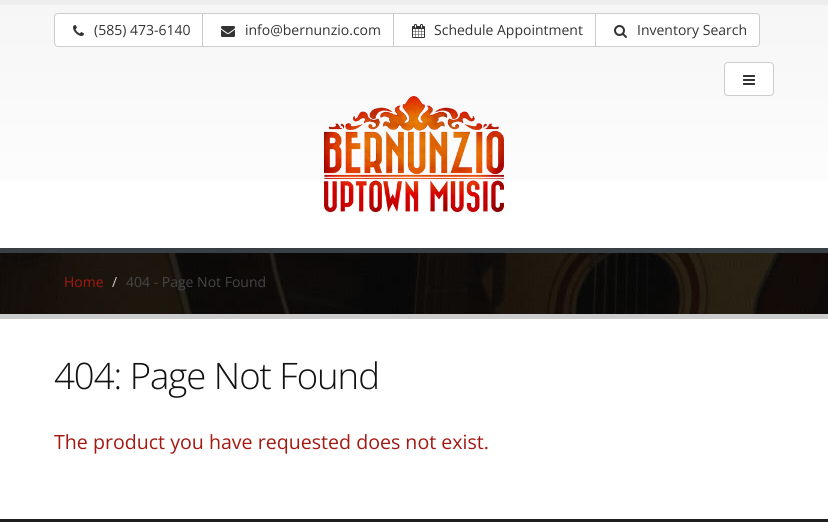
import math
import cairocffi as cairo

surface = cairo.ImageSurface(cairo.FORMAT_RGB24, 828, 522)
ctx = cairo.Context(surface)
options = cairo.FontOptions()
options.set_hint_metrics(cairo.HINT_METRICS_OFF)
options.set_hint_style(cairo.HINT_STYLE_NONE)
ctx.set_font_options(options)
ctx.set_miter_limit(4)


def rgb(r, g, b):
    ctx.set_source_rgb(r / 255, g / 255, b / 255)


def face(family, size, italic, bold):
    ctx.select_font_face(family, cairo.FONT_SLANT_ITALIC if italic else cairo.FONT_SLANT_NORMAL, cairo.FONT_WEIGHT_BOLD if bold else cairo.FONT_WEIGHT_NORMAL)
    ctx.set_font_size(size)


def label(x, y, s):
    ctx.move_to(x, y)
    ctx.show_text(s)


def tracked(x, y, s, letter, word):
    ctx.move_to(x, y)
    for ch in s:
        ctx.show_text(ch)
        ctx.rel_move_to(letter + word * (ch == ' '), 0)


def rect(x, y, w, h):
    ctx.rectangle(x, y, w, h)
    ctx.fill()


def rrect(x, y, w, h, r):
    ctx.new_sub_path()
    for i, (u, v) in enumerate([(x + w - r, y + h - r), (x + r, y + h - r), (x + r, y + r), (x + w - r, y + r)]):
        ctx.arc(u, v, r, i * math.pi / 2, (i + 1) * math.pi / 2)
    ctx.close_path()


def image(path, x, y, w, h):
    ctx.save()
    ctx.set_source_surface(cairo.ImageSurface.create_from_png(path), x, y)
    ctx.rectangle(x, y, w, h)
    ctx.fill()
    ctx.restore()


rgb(255, 255, 255)
ctx.paint()
gradient = cairo.LinearGradient(414, 5, 414, 248)
gradient.add_color_stop_rgba(0, 0.965, 0.965, 0.965, 1)
gradient.add_color_stop_rgba(1, 1, 1, 1, 1)
ctx.set_source(gradient)
rect(0, 5, 828, 176)
rgb(237, 237, 237)
rect(0, 0, 828, 5)
rgb(255, 255, 255)
ctx.new_path()
ctx.move_to(58, 13.5)
ctx.line_to(202.5, 13.5)
ctx.line_to(202.5, 46.5)
ctx.line_to(58, 46.5)
ctx.curve_to(56, 46.5, 54.5, 45, 54.5, 43)
ctx.line_to(54.5, 17)
ctx.curve_to(54.5, 15, 56, 13.5, 58, 13.5)
ctx.close_path()
ctx.fill_preserve()
rgb(204, 204, 204)
ctx.set_line_width(1)
ctx.stroke()
image('image0.png', 73, 25, 11, 11)
face('Open Sans', 14, 0, 0)
rgb(51, 51, 51)
label(94, 35, '(585) 473-6140')
rgb(255, 255, 255)
ctx.rectangle(202.5, 13.5, 191, 33)
ctx.fill_preserve()
rgb(204, 204, 204)
ctx.stroke()
image('image1.png', 221, 26, 14, 11)
rgb(51, 51, 51)
label(245, 35, 'info@bernunzio.com')
rgb(255, 255, 255)
ctx.rectangle(393.5, 13.5, 202, 33)
ctx.fill_preserve()
rgb(204, 204, 204)
ctx.stroke()
image('image2.png', 412, 24, 13, 14)
rgb(51, 51, 51)
label(434, 35, 'Schedule Appointment')
rgb(255, 255, 255)
ctx.new_path()
ctx.move_to(595.5, 13.5)
ctx.line_to(756, 13.5)
ctx.curve_to(758, 13.5, 759.5, 15, 759.5, 17)
ctx.line_to(759.5, 43)
ctx.curve_to(759.5, 45, 758, 46.5, 756, 46.5)
ctx.line_to(595.5, 46.5)
ctx.close_path()
ctx.fill_preserve()
rgb(204, 204, 204)
ctx.stroke()
image('image3.png', 614, 25, 13, 13)
rgb(51, 51, 51)
label(637, 35, 'Inventory Search')
rgb(255, 255, 255)
rrect(724.5, 62.5, 49, 33, 3.5)
ctx.fill_preserve()
rgb(204, 204, 204)
ctx.stroke()
image('image4.png', 743, 75, 12, 10)
image('image5.png', 324, 96, 180, 116)
image('image6.png', 0, 253, 828, 61)
rgb(56, 64, 69)
rect(0, 248, 828, 5)
rgb(204, 204, 204)
rect(0, 314, 828, 5)
rgb(163, 25, 18)
label(64, 287, 'Home')
rgb(204, 204, 204)
label(112, 287, '/')
rgb(69, 69, 69)
label(126, 287, '404 - Page Not Found')
face('Open Sans Light', 36.5, 0, 0)
rgb(18, 18, 20)
tracked(54, 389, '404: Page Not Found', -1, 0)
face('Open Sans', 19.6, 0, 0)
rgb(163, 25, 18)
label(54, 449, 'The product you have requested does not exist.')
rgb(31, 31, 31)
rect(0, 519, 828, 3)
surface.write_to_png('render.png')
